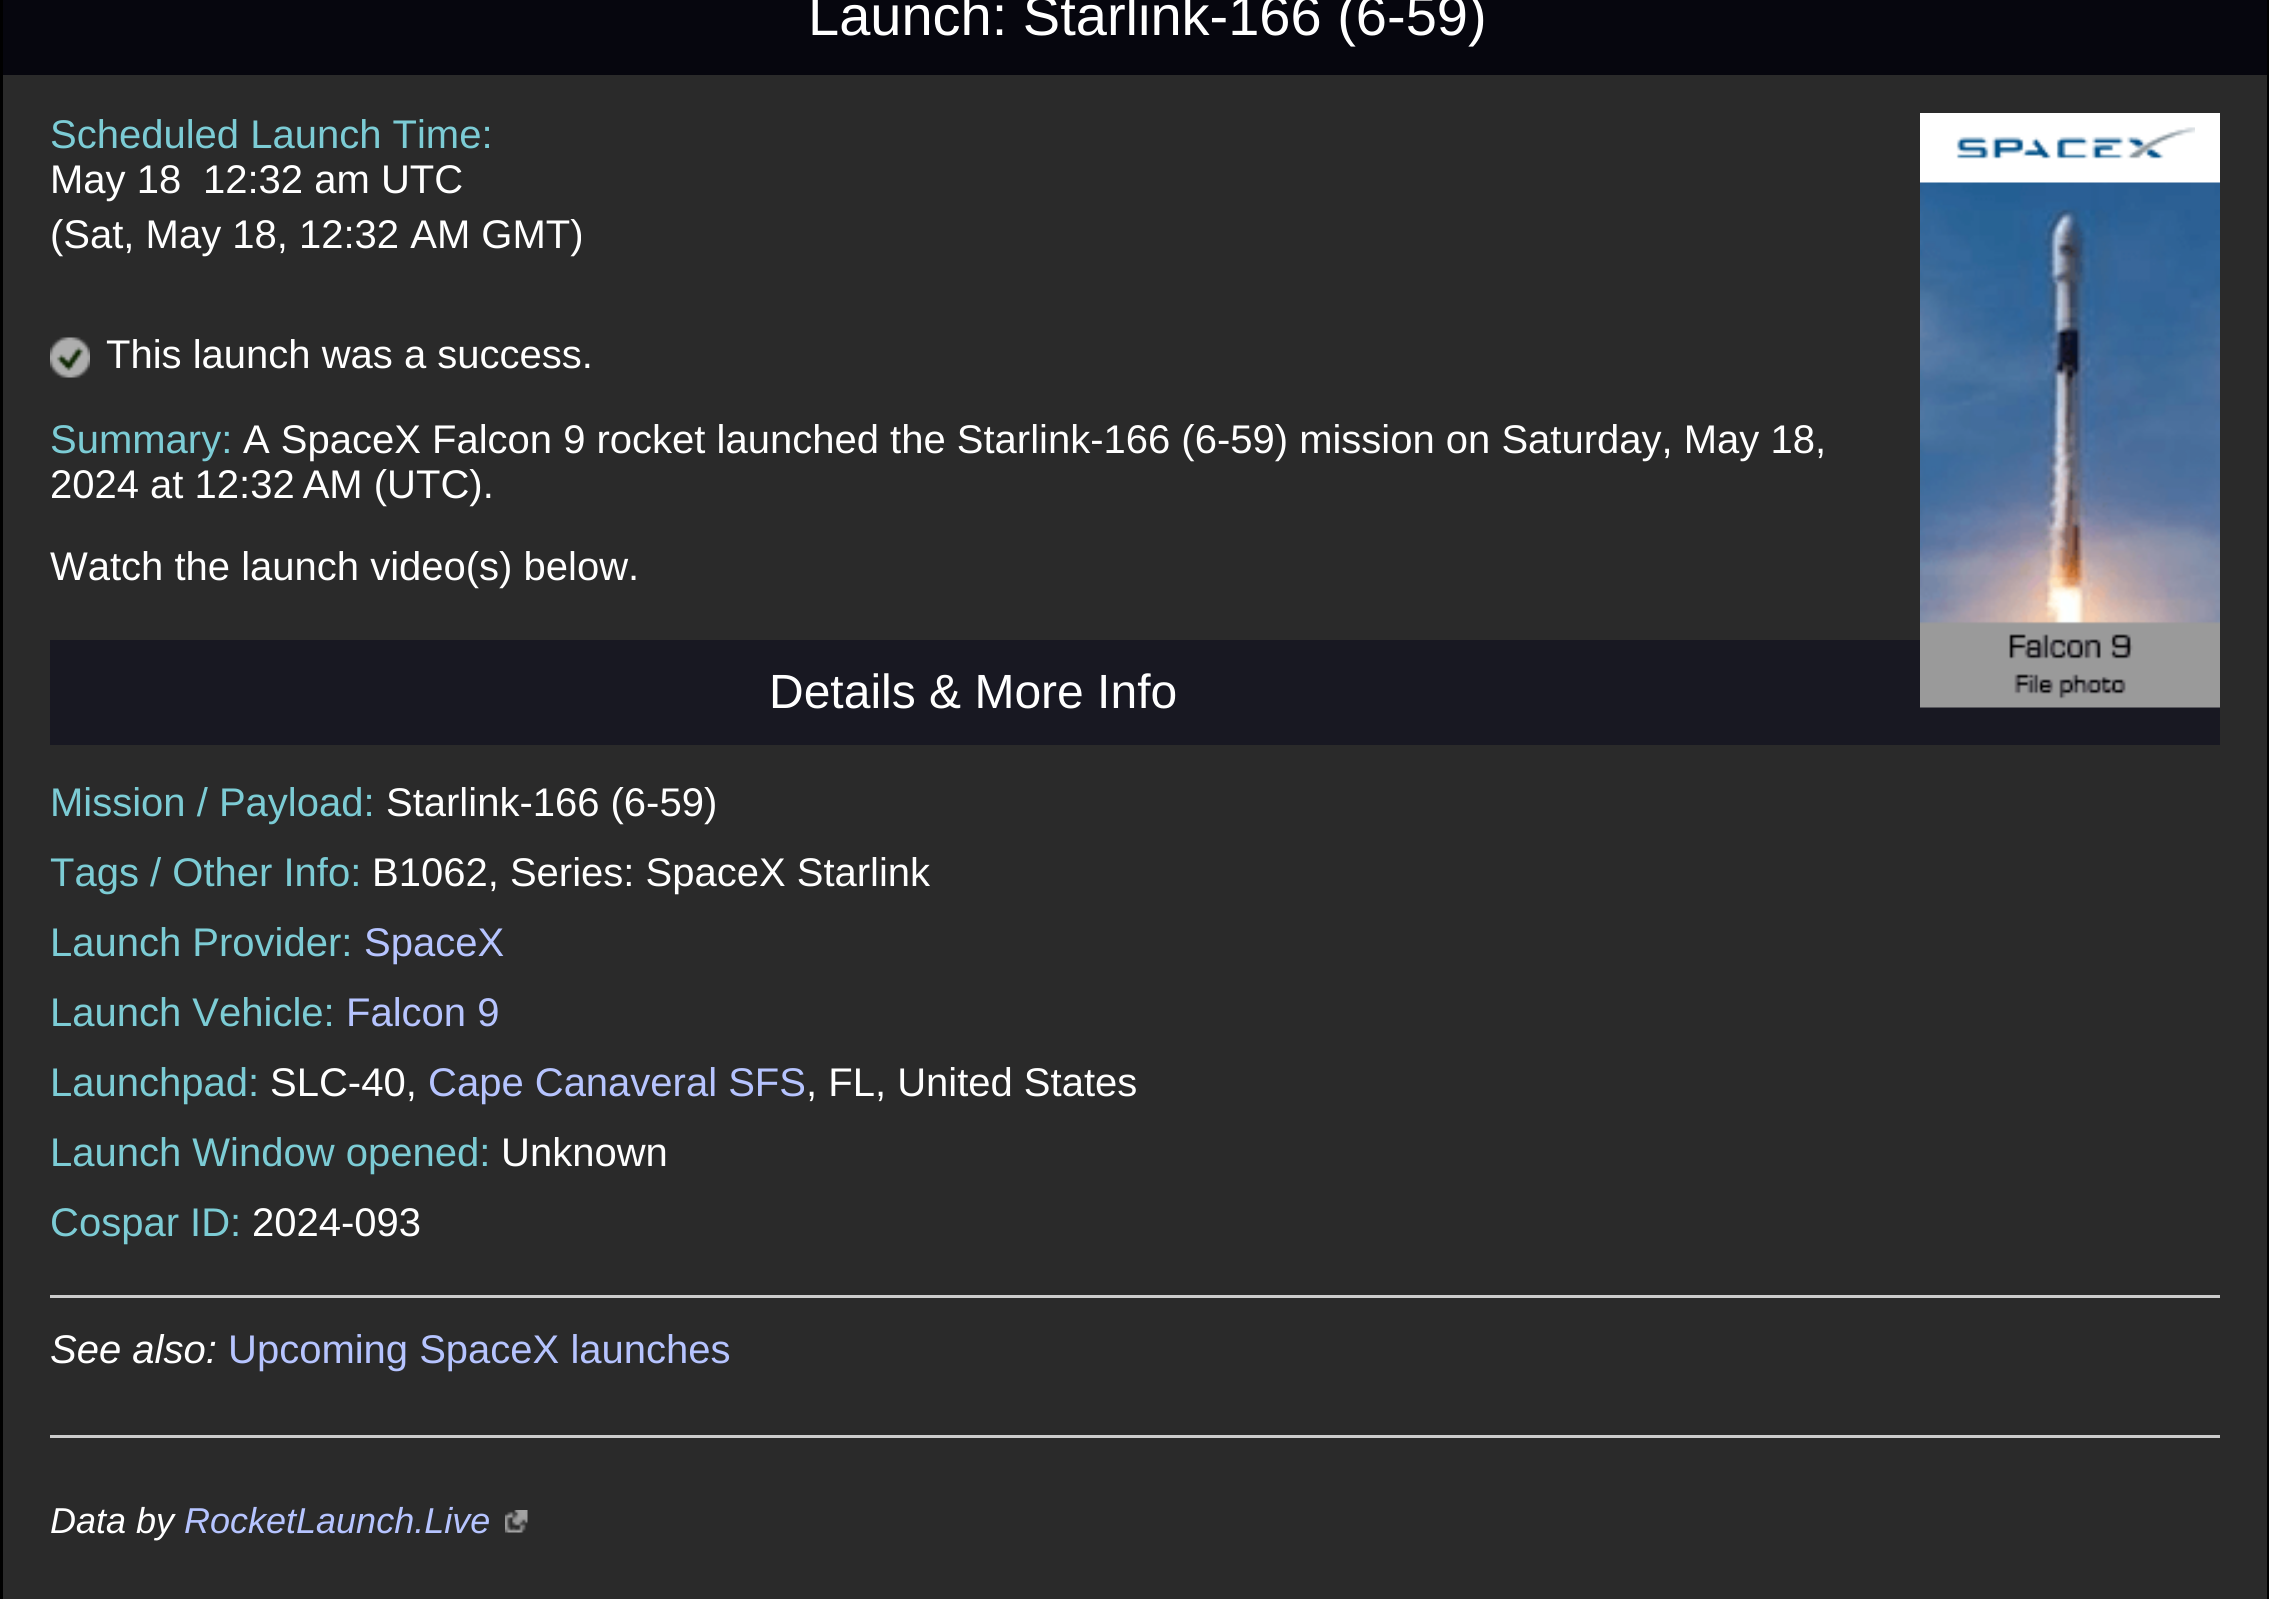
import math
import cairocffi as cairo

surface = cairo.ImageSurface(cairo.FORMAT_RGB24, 2269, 1599)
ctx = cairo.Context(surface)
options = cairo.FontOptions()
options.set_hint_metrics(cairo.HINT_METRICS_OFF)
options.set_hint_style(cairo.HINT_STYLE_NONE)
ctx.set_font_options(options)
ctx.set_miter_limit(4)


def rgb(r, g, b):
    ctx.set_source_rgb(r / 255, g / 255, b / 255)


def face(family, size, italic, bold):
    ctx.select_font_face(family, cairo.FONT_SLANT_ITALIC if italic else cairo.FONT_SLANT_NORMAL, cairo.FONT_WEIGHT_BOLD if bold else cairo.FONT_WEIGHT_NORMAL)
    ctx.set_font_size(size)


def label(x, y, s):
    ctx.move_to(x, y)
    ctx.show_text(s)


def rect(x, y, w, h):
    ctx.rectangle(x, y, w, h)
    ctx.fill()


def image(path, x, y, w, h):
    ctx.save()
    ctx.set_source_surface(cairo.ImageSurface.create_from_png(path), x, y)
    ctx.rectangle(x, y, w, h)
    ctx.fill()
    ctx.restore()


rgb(42, 42, 42)
ctx.paint()
rgb(6, 6, 14)
rect(3, 0, 2264, 75)
rgb(255, 255, 255)
rect(1920, 113, 300, 70)
image('image0.png', 1956, 127, 239, 32)
rgb(24, 24, 34)
rect(50, 640, 2170, 105)
image('image1.png', 1920, 182, 300, 526)
image('image2.png', 50, 337, 40, 41)
rgb(204, 204, 204)
rect(50, 1295, 2170, 3)
rect(50, 1435, 2170, 3)
image('image3.png', 505, 1510, 23, 23)
ctx.rectangle(1.5, -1.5, 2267, 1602)
rgb(0, 0, 0)
ctx.set_line_width(3)
ctx.stroke()
face('Liberation Sans', 56, 0, 0)
rgb(255, 255, 255)
label(808, 35, 'Launch: Starlink-166 (6-59)')
face('Liberation Sans', 40, 0, 0)
rgb(124, 204, 213)
label(50, 148, 'Scheduled Launch Time:')
rgb(255, 255, 255)
label(50, 193, 'May 18')
label(203, 193, '12:32 am UTC')
label(50, 248, '(Sat, May 18, 12:32 AM GMT)')
label(106, 368, 'This launch was a success.')
rgb(124, 204, 213)
label(50, 453, 'Summary:')
rgb(255, 255, 255)
label(243, 453, 'A SpaceX Falcon 9 rocket launched the Starlink-166 (6-59) mission on Saturday, May 18,')
label(50, 498, '2024 at 12:32 AM (UTC).')
label(50, 580, 'Watch the launch video(s) below.')
face('Liberation Sans', 48, 0, 0)
label(769, 708, 'Details & More Info')
face('Liberation Sans', 40, 0, 0)
rgb(124, 204, 213)
label(50, 816, 'Mission / Payload:')
rgb(255, 255, 255)
label(386, 816, 'Starlink-166 (6-59)')
rgb(124, 204, 213)
label(50, 886, 'Tags / Other Info:')
rgb(255, 255, 255)
label(372, 886, 'B1062, Series: SpaceX Starlink')
rgb(124, 204, 213)
label(50, 956, 'Launch Provider:')
rgb(182, 196, 255)
label(364, 956, 'SpaceX')
rgb(124, 204, 213)
label(50, 1026, 'Launch Vehicle:')
rgb(182, 196, 255)
label(346, 1026, 'Falcon 9')
rgb(124, 204, 213)
label(50, 1096, 'Launchpad:')
rgb(255, 255, 255)
label(270, 1096, 'SLC-40,')
rgb(182, 196, 255)
label(428, 1096, 'Cape Canaveral SFS')
rgb(255, 255, 255)
label(806, 1096, ', FL, United States')
rgb(124, 204, 213)
label(50, 1166, 'Launch Window opened:')
rgb(255, 255, 255)
label(501, 1166, 'Unknown')
rgb(124, 204, 213)
label(50, 1236, 'Cospar ID:')
rgb(255, 255, 255)
label(252, 1236, '2024-093')
face('Liberation Sans', 40, 1, 0)
label(50, 1363, 'See also:')
face('Liberation Sans', 40, 0, 0)
rgb(182, 196, 255)
label(228, 1363, 'Upcoming SpaceX launches')
face('Liberation Sans', 36, 1, 0)
rgb(255, 255, 255)
label(50, 1533, 'Data by')
rgb(182, 196, 255)
label(184, 1533, 'RocketLaunch.Live')
surface.write_to_png('render.png')
